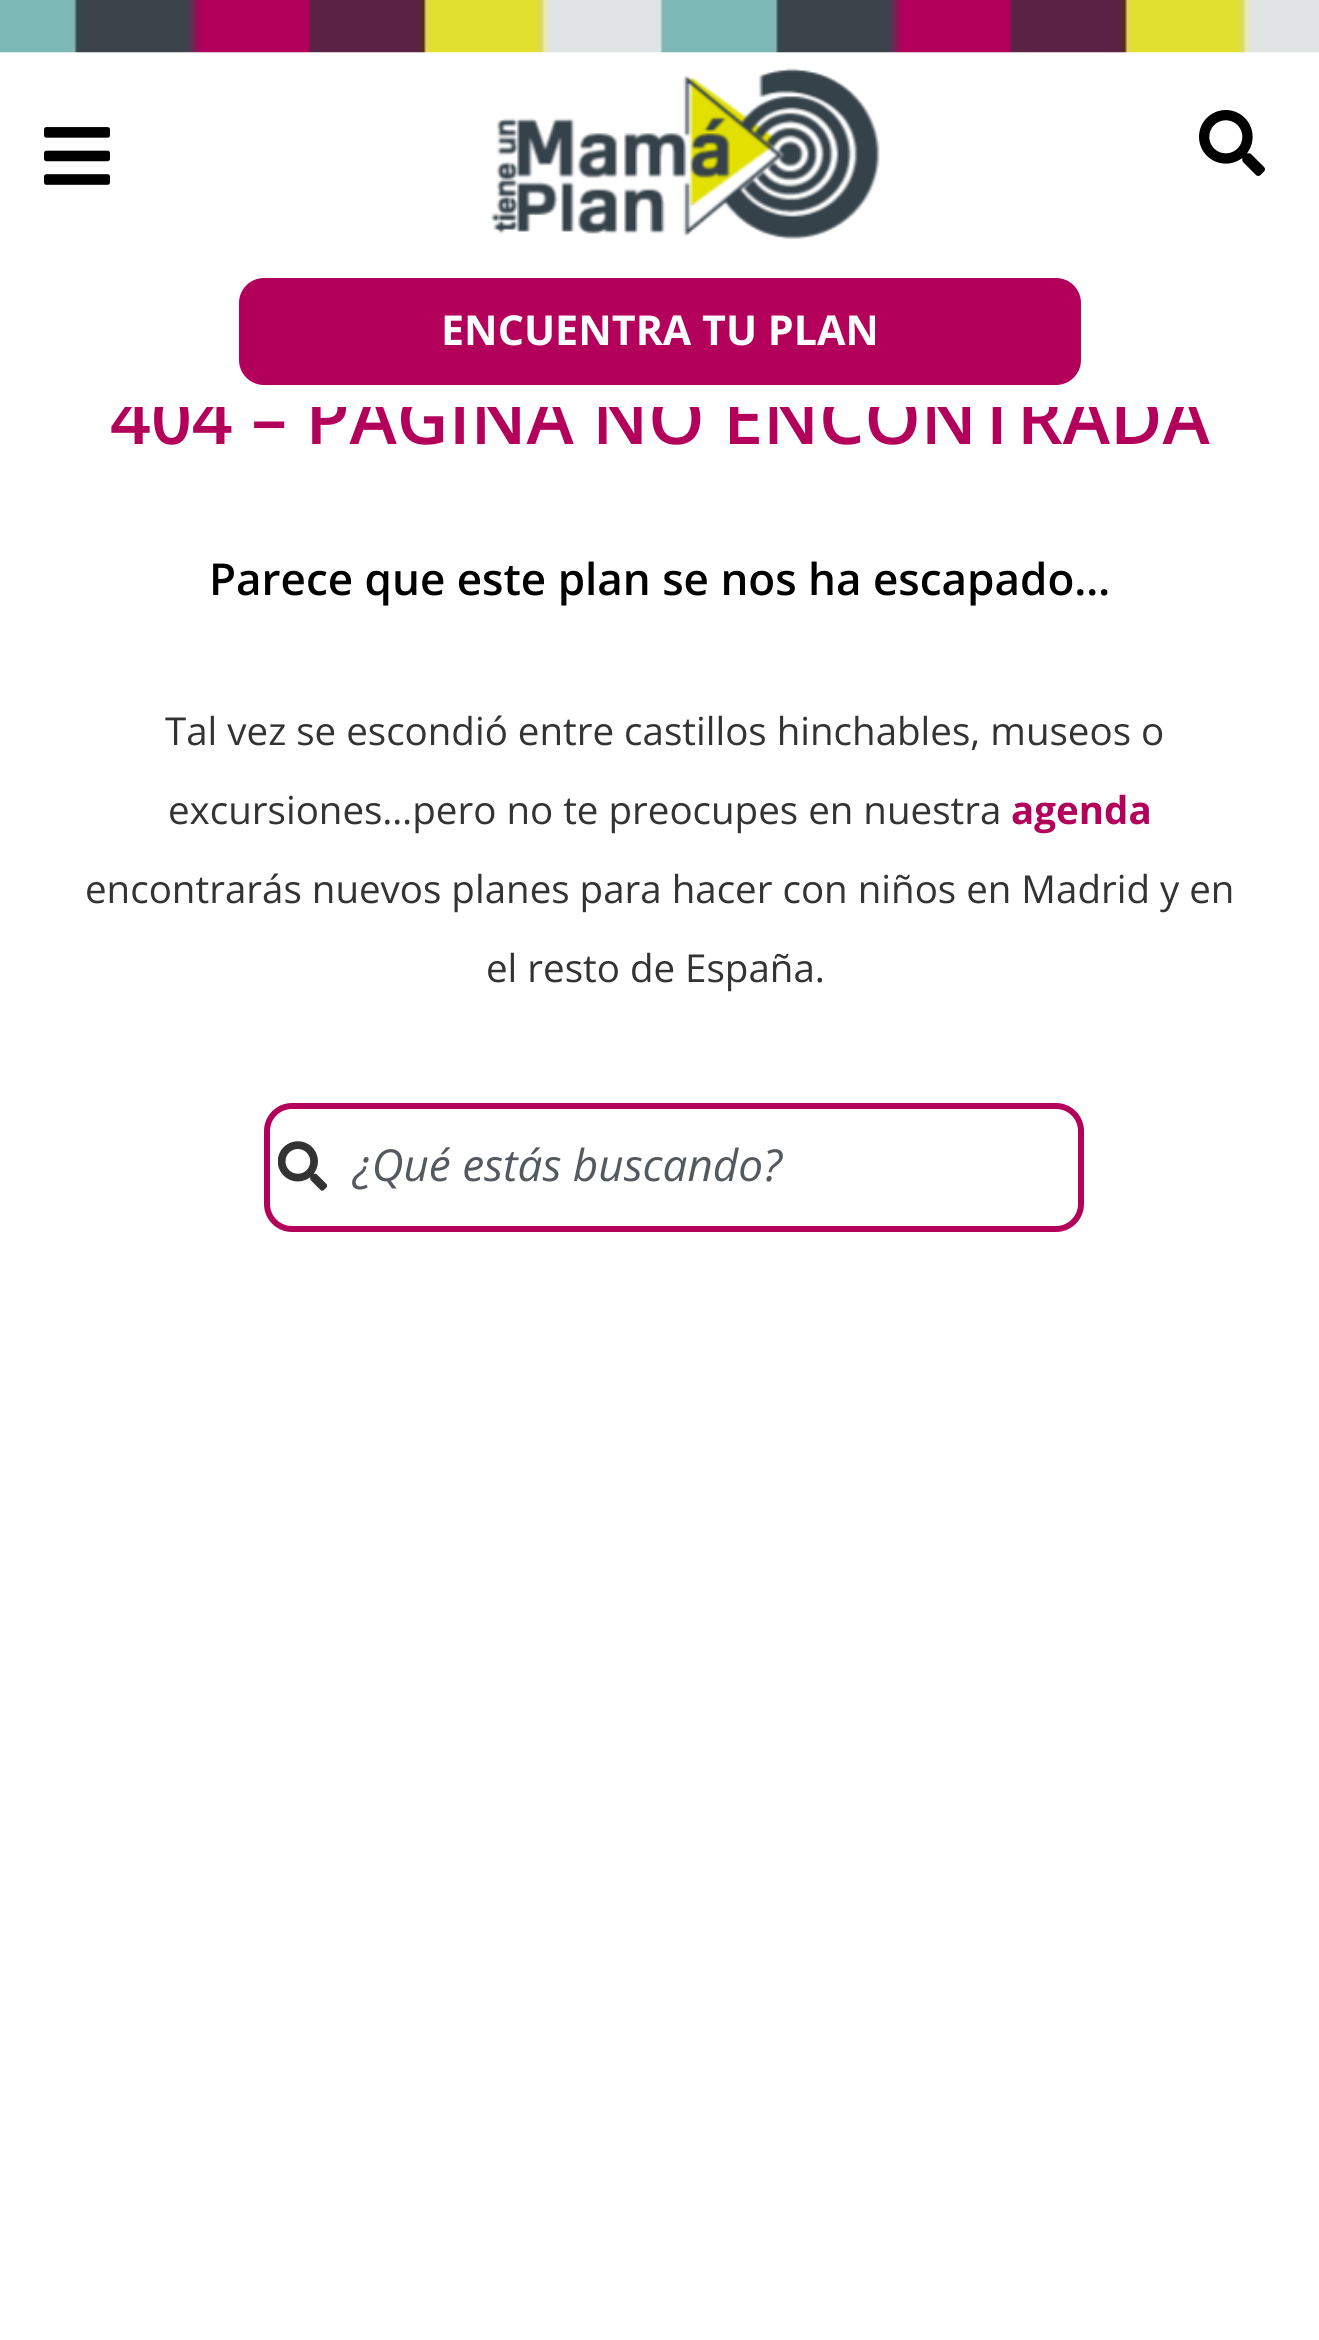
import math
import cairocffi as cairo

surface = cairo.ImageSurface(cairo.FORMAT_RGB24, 1319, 2340)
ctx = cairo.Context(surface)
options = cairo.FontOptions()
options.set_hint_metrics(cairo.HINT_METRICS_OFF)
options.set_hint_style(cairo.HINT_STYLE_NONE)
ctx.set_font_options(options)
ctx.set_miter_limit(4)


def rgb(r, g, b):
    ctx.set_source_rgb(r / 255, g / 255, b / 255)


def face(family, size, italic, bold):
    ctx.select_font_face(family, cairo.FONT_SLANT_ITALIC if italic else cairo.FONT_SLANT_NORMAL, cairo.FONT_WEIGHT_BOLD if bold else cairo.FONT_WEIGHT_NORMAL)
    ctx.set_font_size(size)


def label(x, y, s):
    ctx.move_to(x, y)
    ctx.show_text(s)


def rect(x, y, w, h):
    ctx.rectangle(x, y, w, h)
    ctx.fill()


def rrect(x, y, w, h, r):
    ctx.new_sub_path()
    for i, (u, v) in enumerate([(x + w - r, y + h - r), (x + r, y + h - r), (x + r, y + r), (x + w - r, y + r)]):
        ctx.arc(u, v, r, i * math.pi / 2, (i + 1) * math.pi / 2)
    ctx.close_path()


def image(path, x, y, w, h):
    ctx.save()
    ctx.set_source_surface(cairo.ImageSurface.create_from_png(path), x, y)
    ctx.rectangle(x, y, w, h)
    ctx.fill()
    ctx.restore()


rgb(255, 255, 255)
ctx.paint()
face('Open Sans SemiBold', 71.5, 0, 0)
rgb(179, 0, 91)
label(110, 444, '404 – PÁGINA NO ENCONTRADA')
rgb(255, 255, 255)
rect(125, 376, 1071, 31)
image('image0.png', 0, 0, 1319, 53)
image('image1.png', 44, 127, 66, 58)
image('image2.png', 491, 68, 389, 172)
image('image3.png', 1199, 110, 66, 66)
rgb(179, 0, 91)
rrect(235, 274, 850, 115, 29)
ctx.fill_preserve()
rgb(255, 255, 255)
ctx.set_line_width(8)
ctx.stroke()
face('Open Sans', 41.25, 0, 1)
label(441, 345, 'ENCUENTRA TU PLAN')
face('Open Sans SemiBold', 44, 0, 0)
rgb(0, 0, 0)
label(209, 595, 'Parece que este plan se nos ha escapado…')
face('Open Sans', 38.5, 0, 0)
rgb(51, 51, 51)
label(165, 745, 'Tal vez se escondió entre castillos hinchables, museos o')
label(168, 824, 'excursiones…pero no te preocupes en nuestra')
face('Open Sans', 38.5, 0, 1)
rgb(179, 0, 91)
label(1011, 824, 'agenda')
face('Open Sans', 38.5, 0, 0)
rgb(51, 51, 51)
label(85, 903, 'encontrarás nuevos planes para hacer con niños en Madrid y en')
label(486, 982, 'el resto de España.')
rrect(267, 1106, 814, 123, 25)
rgb(179, 0, 91)
ctx.set_line_width(6)
ctx.stroke()
image('image4.png', 278, 1141, 49, 50)
face('Open Sans', 44, 1, 0)
rgb(84, 89, 95)
label(353, 1181, '¿Qué estás buscando?')
surface.write_to_png('render.png')
